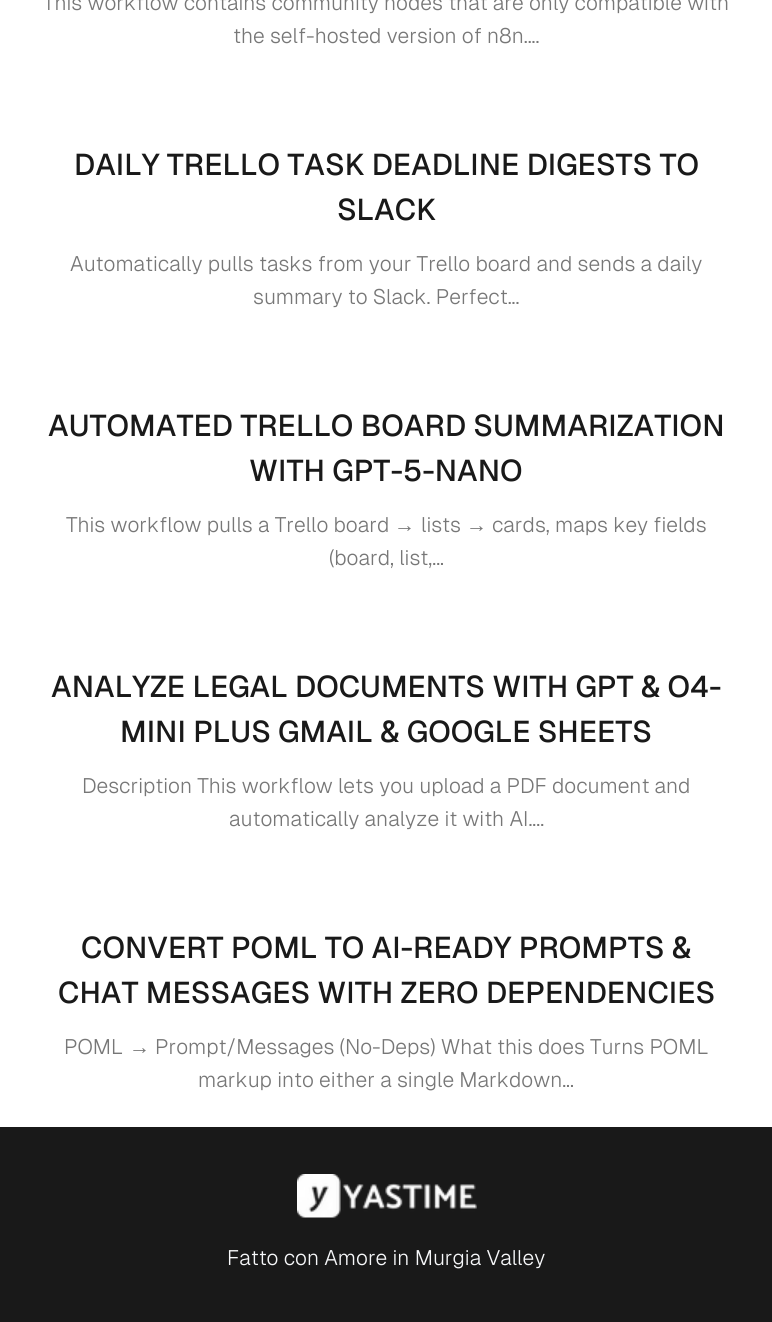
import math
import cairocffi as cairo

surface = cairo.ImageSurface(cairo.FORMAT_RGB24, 772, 1322)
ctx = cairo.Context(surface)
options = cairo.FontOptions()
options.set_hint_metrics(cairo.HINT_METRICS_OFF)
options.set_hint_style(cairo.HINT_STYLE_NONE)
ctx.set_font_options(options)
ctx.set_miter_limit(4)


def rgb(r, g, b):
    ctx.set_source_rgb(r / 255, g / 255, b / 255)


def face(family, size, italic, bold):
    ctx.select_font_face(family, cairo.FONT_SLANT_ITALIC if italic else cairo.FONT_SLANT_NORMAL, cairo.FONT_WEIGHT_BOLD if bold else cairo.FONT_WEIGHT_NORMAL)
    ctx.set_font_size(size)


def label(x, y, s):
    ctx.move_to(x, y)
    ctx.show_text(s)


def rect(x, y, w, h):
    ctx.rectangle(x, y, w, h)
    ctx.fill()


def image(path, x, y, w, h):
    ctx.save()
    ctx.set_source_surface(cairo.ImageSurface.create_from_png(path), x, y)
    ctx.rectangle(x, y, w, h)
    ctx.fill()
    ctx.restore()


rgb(255, 255, 255)
ctx.paint()
face('Geist Light', 21, 0, 0)
rgb(119, 119, 119)
label(43, 10, 'This workflow contains community nodes that are only compatible with')
label(233, 43, 'the self-hosted version of n8n....')
face('Geist Medium', 30, 0, 0)
rgb(25, 25, 25)
label(74, 175, 'DAILY TRELLO TASK DEADLINE DIGESTS TO')
label(337, 220, 'SLACK')
face('Geist Light', 21, 0, 0)
rgb(119, 119, 119)
label(70, 271, 'Automatically pulls tasks from your Trello board and sends a daily')
label(253, 304, 'summary to Slack. Perfect...')
face('Geist Medium', 30, 0, 0)
rgb(25, 25, 25)
label(48, 436, 'AUTOMATED TRELLO BOARD SUMMARIZATION')
label(249, 481, 'WITH GPT-5-NANO')
face('Geist Light', 21, 0, 0)
rgb(119, 119, 119)
label(66, 532, 'This workflow pulls a Trello board')
face('Liberation Sans', 21, 0, 0)
label(394, 532, '→')
face('Geist Light', 21, 0, 0)
label(421, 532, 'lists')
face('Liberation Sans', 21, 0, 0)
label(466, 532, '→')
face('Geist Light', 21, 0, 0)
label(492, 532, 'cards, maps key fields')
label(329, 565, '(board, list,...')
face('Geist Medium', 30, 0, 0)
rgb(25, 25, 25)
label(51, 697, 'ANALYZE LEGAL DOCUMENTS WITH GPT & O4-')
label(120, 742, 'MINI PLUS GMAIL & GOOGLE SHEETS')
face('Geist Light', 21, 0, 0)
rgb(119, 119, 119)
label(82, 793, 'Description This workflow lets you upload a PDF document and')
label(229, 826, 'automatically analyze it with AI....')
face('Geist Medium', 30, 0, 0)
rgb(25, 25, 25)
label(81, 958, 'CONVERT POML TO AI-READY PROMPTS &')
label(58, 1003, 'CHAT MESSAGES WITH ZERO DEPENDENCIES')
face('Geist Light', 21, 0, 0)
rgb(119, 119, 119)
label(64, 1054, 'POML')
face('Liberation Sans', 21, 0, 0)
label(129, 1054, '→')
face('Geist Light', 21, 0, 0)
label(155, 1054, 'Prompt/Messages (No-Deps) What this does Turns POML')
label(198, 1087, 'markup into either a single Markdown...')
rgb(25, 25, 25)
rect(0, 1127, 772, 195)
image('image0.png', 297, 1174, 180, 44)
rgb(247, 248, 250)
label(227, 1265, 'Fatto con Amore in Murgia Valley')
surface.write_to_png('render.png')
